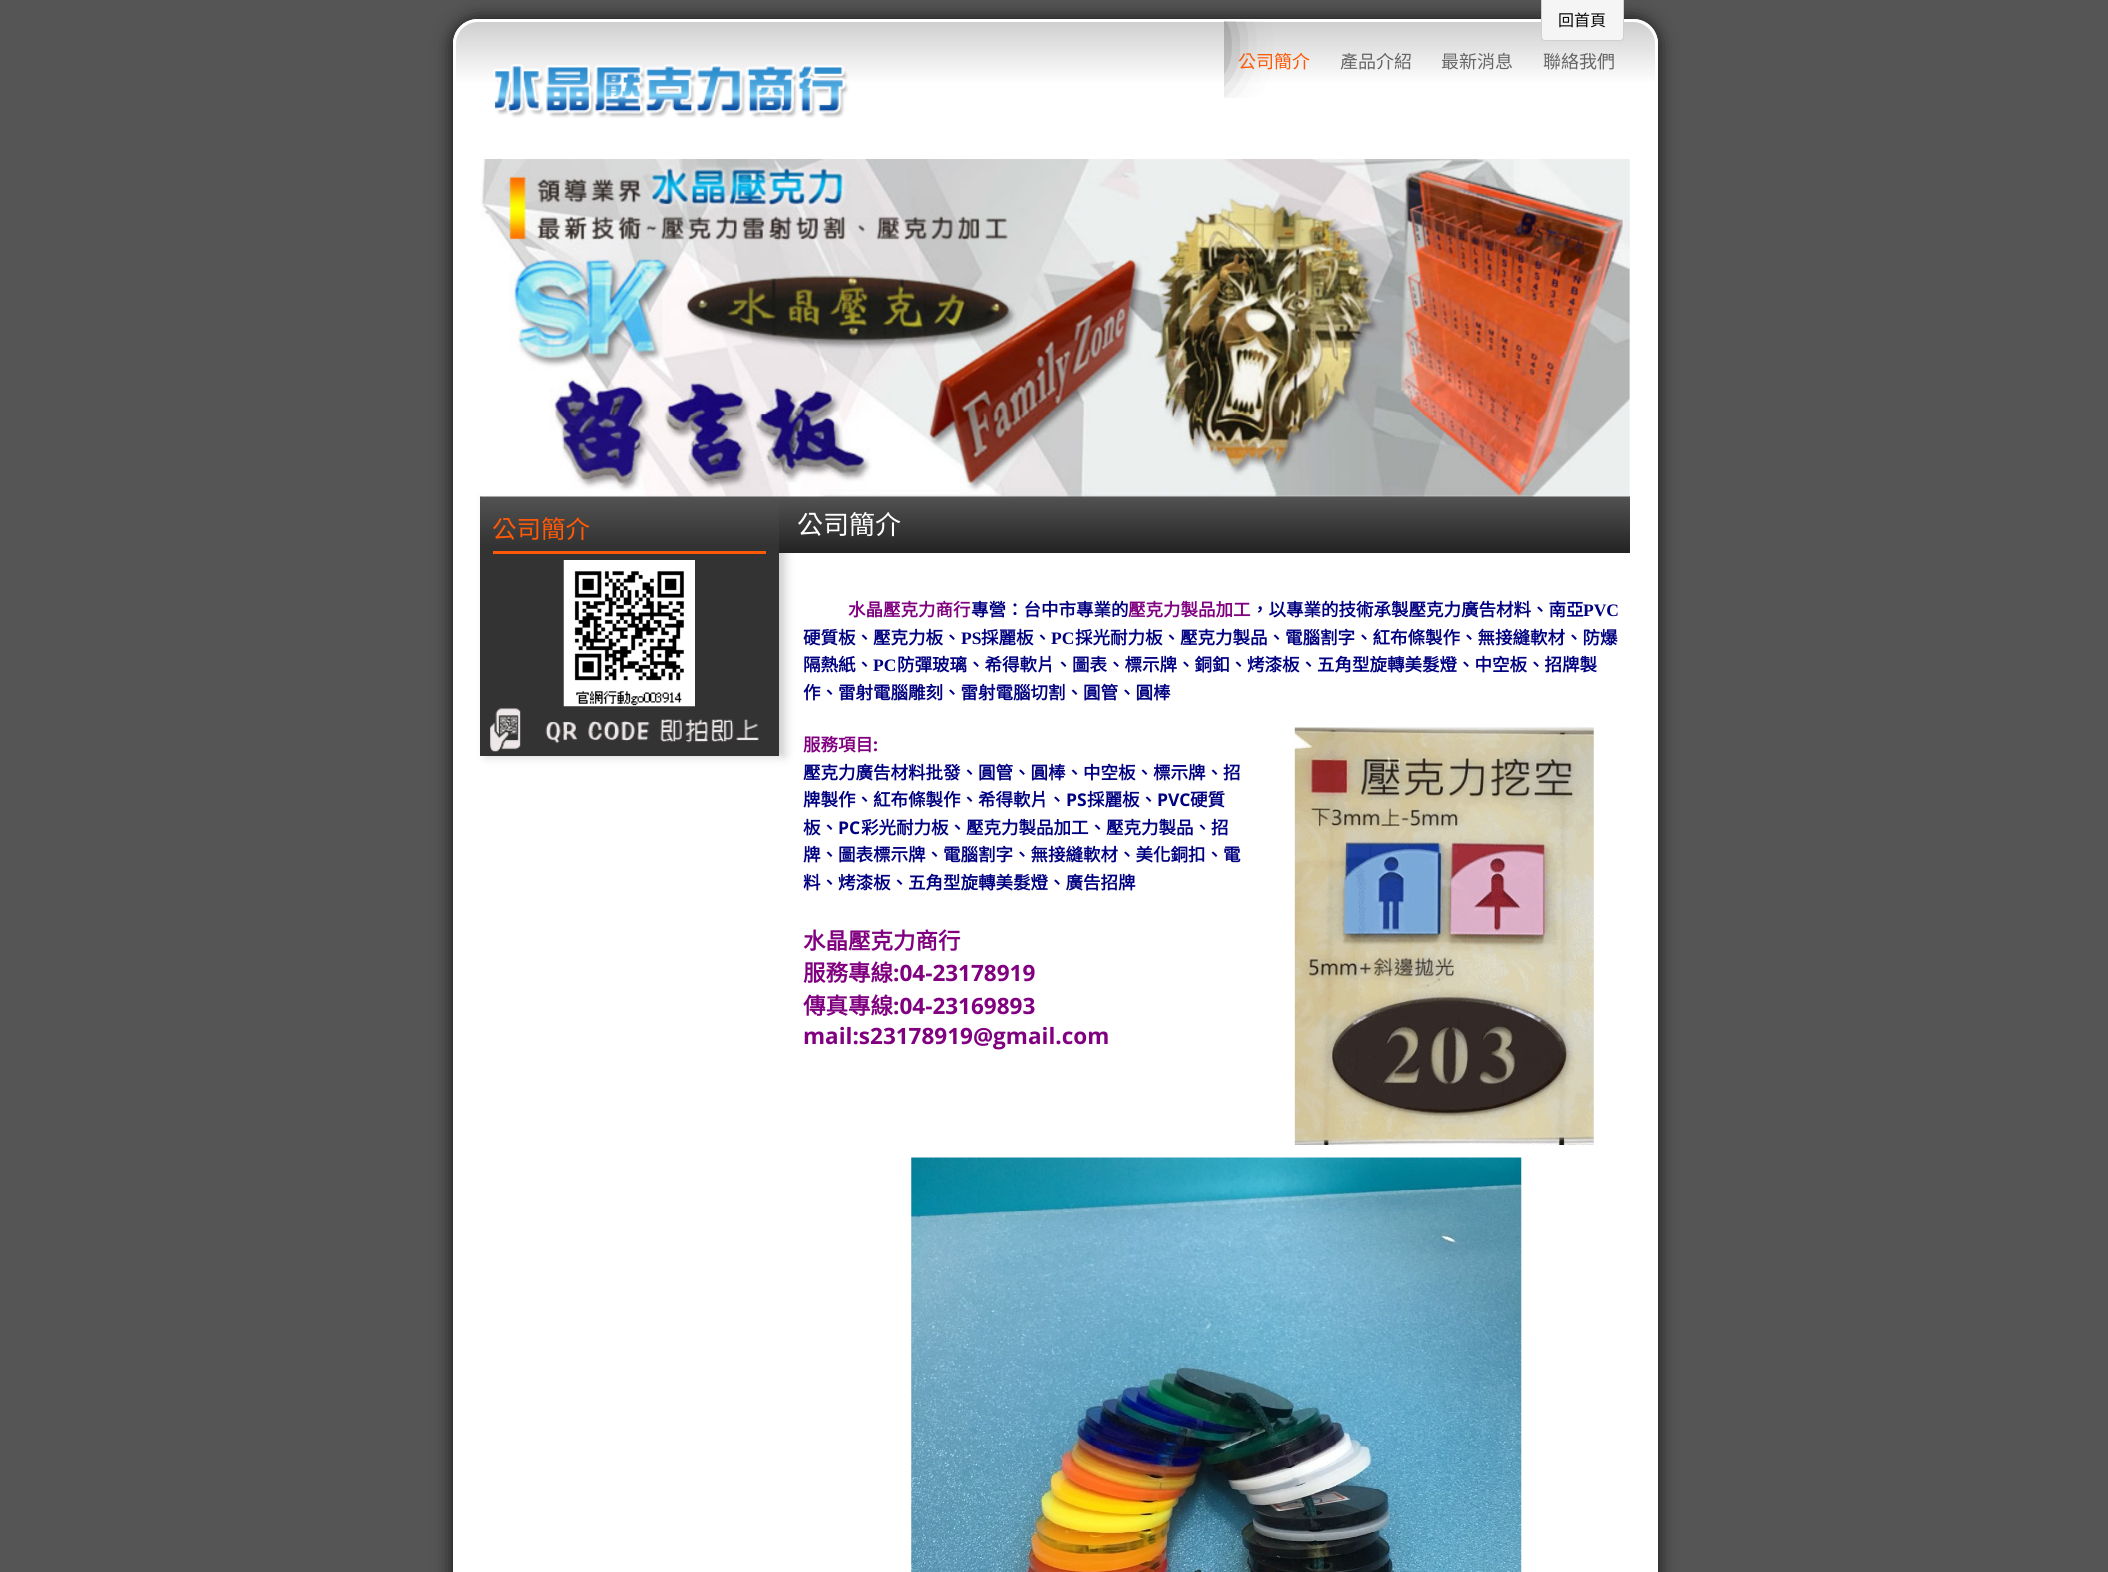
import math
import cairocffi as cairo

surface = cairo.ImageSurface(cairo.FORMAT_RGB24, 2108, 1572)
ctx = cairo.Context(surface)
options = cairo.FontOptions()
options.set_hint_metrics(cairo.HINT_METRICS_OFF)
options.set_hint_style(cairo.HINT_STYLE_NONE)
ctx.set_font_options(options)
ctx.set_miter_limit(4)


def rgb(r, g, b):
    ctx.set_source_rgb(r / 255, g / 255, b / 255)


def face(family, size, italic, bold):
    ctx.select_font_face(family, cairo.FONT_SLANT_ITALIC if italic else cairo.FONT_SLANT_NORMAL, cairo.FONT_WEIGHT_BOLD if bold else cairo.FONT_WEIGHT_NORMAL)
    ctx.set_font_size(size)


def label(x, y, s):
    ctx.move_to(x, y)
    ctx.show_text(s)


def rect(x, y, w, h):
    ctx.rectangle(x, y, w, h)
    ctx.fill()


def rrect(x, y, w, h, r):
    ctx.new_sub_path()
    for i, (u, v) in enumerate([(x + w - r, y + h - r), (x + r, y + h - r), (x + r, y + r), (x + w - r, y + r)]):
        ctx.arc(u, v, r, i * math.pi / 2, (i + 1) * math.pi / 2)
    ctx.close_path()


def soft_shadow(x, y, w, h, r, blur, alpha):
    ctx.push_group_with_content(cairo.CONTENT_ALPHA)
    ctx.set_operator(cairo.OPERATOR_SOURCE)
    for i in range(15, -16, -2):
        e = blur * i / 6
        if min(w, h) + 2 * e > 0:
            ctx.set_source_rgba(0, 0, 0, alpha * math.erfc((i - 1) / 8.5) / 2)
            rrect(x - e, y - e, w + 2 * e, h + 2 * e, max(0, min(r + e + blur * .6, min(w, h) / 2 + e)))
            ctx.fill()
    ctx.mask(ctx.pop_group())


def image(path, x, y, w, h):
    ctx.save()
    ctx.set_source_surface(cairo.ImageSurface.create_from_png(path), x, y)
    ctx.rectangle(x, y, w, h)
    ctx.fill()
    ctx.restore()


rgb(85, 85, 85)
ctx.paint()
rgb(17, 17, 17)
soft_shadow(453, 19, 1205, 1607, 25, 9.5, 1)
rgb(255, 255, 255)
ctx.new_path()
ctx.move_to(478, 19)
ctx.line_to(1633, 19)
ctx.curve_to(1647, 19, 1658, 30, 1658, 44)
ctx.line_to(1658, 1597)
ctx.line_to(453, 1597)
ctx.line_to(453, 44)
ctx.curve_to(453, 30, 464, 19, 478, 19)
ctx.close_path()
ctx.fill()
ctx.save()
ctx.new_path()
ctx.move_to(478, 19)
ctx.line_to(1633, 19)
ctx.curve_to(1647, 19, 1658, 30, 1658, 44)
ctx.line_to(1658, 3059)
ctx.line_to(453, 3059)
ctx.line_to(453, 44)
ctx.curve_to(453, 30, 464, 19, 478, 19)
ctx.close_path()
ctx.clip()
gradient = cairo.LinearGradient(1055, 21, 1055, 84)
gradient.add_color_stop_rgba(0, 0.808, 0.808, 0.808, 1)
gradient.add_color_stop_rgba(1, 1, 1, 1, 1)
ctx.set_source(gradient)
rect(455, 21, 1200, 63)
ctx.restore()
ctx.new_path()
ctx.move_to(478, 20.5)
ctx.line_to(1633, 20.5)
ctx.curve_to(1646, 20.5, 1656.5, 31, 1656.5, 44)
ctx.line_to(1656.5, 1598.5)
ctx.line_to(454.5, 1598.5)
ctx.line_to(454.5, 44)
ctx.curve_to(454.5, 31, 465, 20.5, 478, 20.5)
ctx.close_path()
ctx.set_line_width(3)
ctx.stroke()
rgb(245, 245, 245)
ctx.new_path()
ctx.move_to(1541, -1)
ctx.line_to(1624, -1)
ctx.line_to(1624, 37)
ctx.curve_to(1624, 39, 1622, 41, 1620, 41)
ctx.line_to(1545, 41)
ctx.curve_to(1543, 41, 1541, 39, 1541, 37)
ctx.close_path()
ctx.fill()
ctx.new_path()
ctx.move_to(1541.5, -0.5)
ctx.line_to(1623.5, -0.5)
ctx.line_to(1623.5, 37)
ctx.curve_to(1623.5, 39, 1622, 40.5, 1620, 40.5)
ctx.line_to(1545, 40.5)
ctx.curve_to(1543, 40.5, 1541.5, 39, 1541.5, 37)
ctx.close_path()
ctx.set_source_rgba(0, 0, 0, 0.15)
ctx.set_line_width(1)
ctx.stroke()
face('Noto Sans CJK TC', 16, 0, 0)
rgb(10, 10, 10)
label(1558, 26, '回首頁')
ctx.save()
ctx.rectangle(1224, 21, 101, 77)
ctx.clip()
rgb(0, 0, 0)
soft_shadow(1136, 21, 75, 50, 6, 25, 0.8)
ctx.restore()
face('Noto Sans CJK TC', 18, 0, 0)
rgb(253, 89, 7)
label(1238, 68, '公司簡介')
rgb(102, 102, 102)
label(1340, 68, '產品介紹')
label(1441, 68, '最新消息')
label(1543, 68, '聯絡我們')
image('image0.png', 493, 64, 356, 54)
rgb(0, 0, 0)
soft_shadow(486, 496, 299, 260, 0, 5, 0.2)
gradient = cairo.LinearGradient(629, 496, 629, 546)
gradient.add_color_stop_rgba(0, 0.325, 0.325, 0.325, 1)
gradient.add_color_stop_rgba(1, 0.2, 0.2, 0.2, 1)
ctx.set_source(gradient)
rect(480, 496, 299, 50)
gradient = cairo.LinearGradient(1204, 496, 1204, 553)
gradient.add_color_stop_rgba(0, 0.325, 0.325, 0.325, 1)
gradient.add_color_stop_rgba(1, 0.137, 0.137, 0.137, 1)
ctx.set_source(gradient)
rect(779, 496, 851, 57)
image('image1.png', 480, 159, 1150, 338)
image('image2.png', 1629, 268, 1, 229)
rgb(51, 51, 51)
rect(480, 546, 299, 210)
rgb(253, 89, 7)
rect(493, 551, 273, 3)
face('Noto Sans CJK TC', 24.5, 0, 0)
label(492, 538, '公司簡介')
image('image3.png', 563, 560, 132, 147)
image('image4.png', 490, 708, 269, 44)
face('Noto Sans CJK TC', 26, 0, 0)
rgb(255, 255, 255)
label(797, 534, '公司簡介')
face('Noto Sans CJK TC', 17.5, 0, 1)
rgb(128, 0, 128)
label(848, 616, '水晶壓克力商行')
rgb(0, 0, 128)
label(971, 616, '專營：台中市專業的')
rgb(128, 0, 128)
label(1128, 616, '壓克力製品加工')
rgb(0, 0, 128)
label(1251, 616, '，以專業的技術承製壓克力廣告材料、南亞')
face('Liberation Serif', 17.5, 0, 1)
label(1583, 616, 'PVC')
face('Noto Sans CJK TC', 17.5, 0, 1)
label(803, 644, '硬質板、壓克力板、')
face('Liberation Serif', 17.5, 0, 1)
label(961, 644, 'PS')
face('Noto Sans CJK TC', 17.5, 0, 1)
label(981, 644, '採麗板、')
face('Liberation Serif', 17.5, 0, 1)
label(1051, 644, 'PC')
face('Noto Sans CJK TC', 17.5, 0, 1)
label(1075, 644, '採光耐力板、壓克力製品、電腦割字、紅布條製作、無接縫軟材、防爆')
label(803, 671, '隔熱紙、')
face('Liberation Serif', 17.5, 0, 1)
label(873, 671, 'PC')
face('Noto Sans CJK TC', 17.5, 0, 1)
label(897, 671, '防彈玻璃、希得軟片、圖表、標示牌、銅釦、烤漆板、五角型旋轉美髮燈、中空板、招牌製')
label(803, 699, '作、雷射電腦雕刻、雷射電腦切割、圓管、圓棒')
rgb(128, 0, 128)
label(803, 751, '服務項目')
face('Open Sans', 17.5, 0, 1)
label(873, 751, ':')
image('image5.png', 1294, 727, 300, 418)
face('Noto Sans CJK TC', 17.5, 0, 1)
rgb(0, 0, 128)
label(803, 779, '壓克力廣告材料批發、圓管、圓棒、中空板、標示牌、招')
label(803, 806, '牌製作、紅布條製作、希得軟片、')
face('Open Sans', 17.5, 0, 1)
label(1066, 806, 'PS')
face('Noto Sans CJK TC', 17.5, 0, 1)
label(1087, 806, '採麗板、')
face('Open Sans', 17.5, 0, 1)
label(1157, 806, 'PVC')
face('Noto Sans CJK TC', 17.5, 0, 1)
label(1190, 806, '硬質')
label(803, 834, '板、')
face('Open Sans', 17.5, 0, 1)
label(838, 834, 'PC')
face('Noto Sans CJK TC', 17.5, 0, 1)
label(861, 834, '彩光耐力板、壓克力製品加工、壓克力製品、招')
label(803, 861, '牌、圖表標示牌、電腦割字、無接縫軟材、美化銅扣、電')
label(803, 889, '料、烤漆板、五角型旋轉美髮燈、廣告招牌')
face('Noto Sans CJK TC', 22.5, 0, 1)
rgb(128, 0, 128)
label(803, 949, '水晶壓克力商行')
label(803, 981, '服務專線')
face('Open Sans', 22.5, 0, 1)
label(893, 981, ':04-23178919')
face('Noto Sans CJK TC', 22.5, 0, 1)
label(803, 1014, '傳真專線')
face('Open Sans', 22.5, 0, 1)
label(893, 1014, ':04-23169893')
label(803, 1044, 'mail:s23178919@gmail.com')
image('image6.png', 911, 1157, 611, 415)
surface.write_to_png('render.png')
